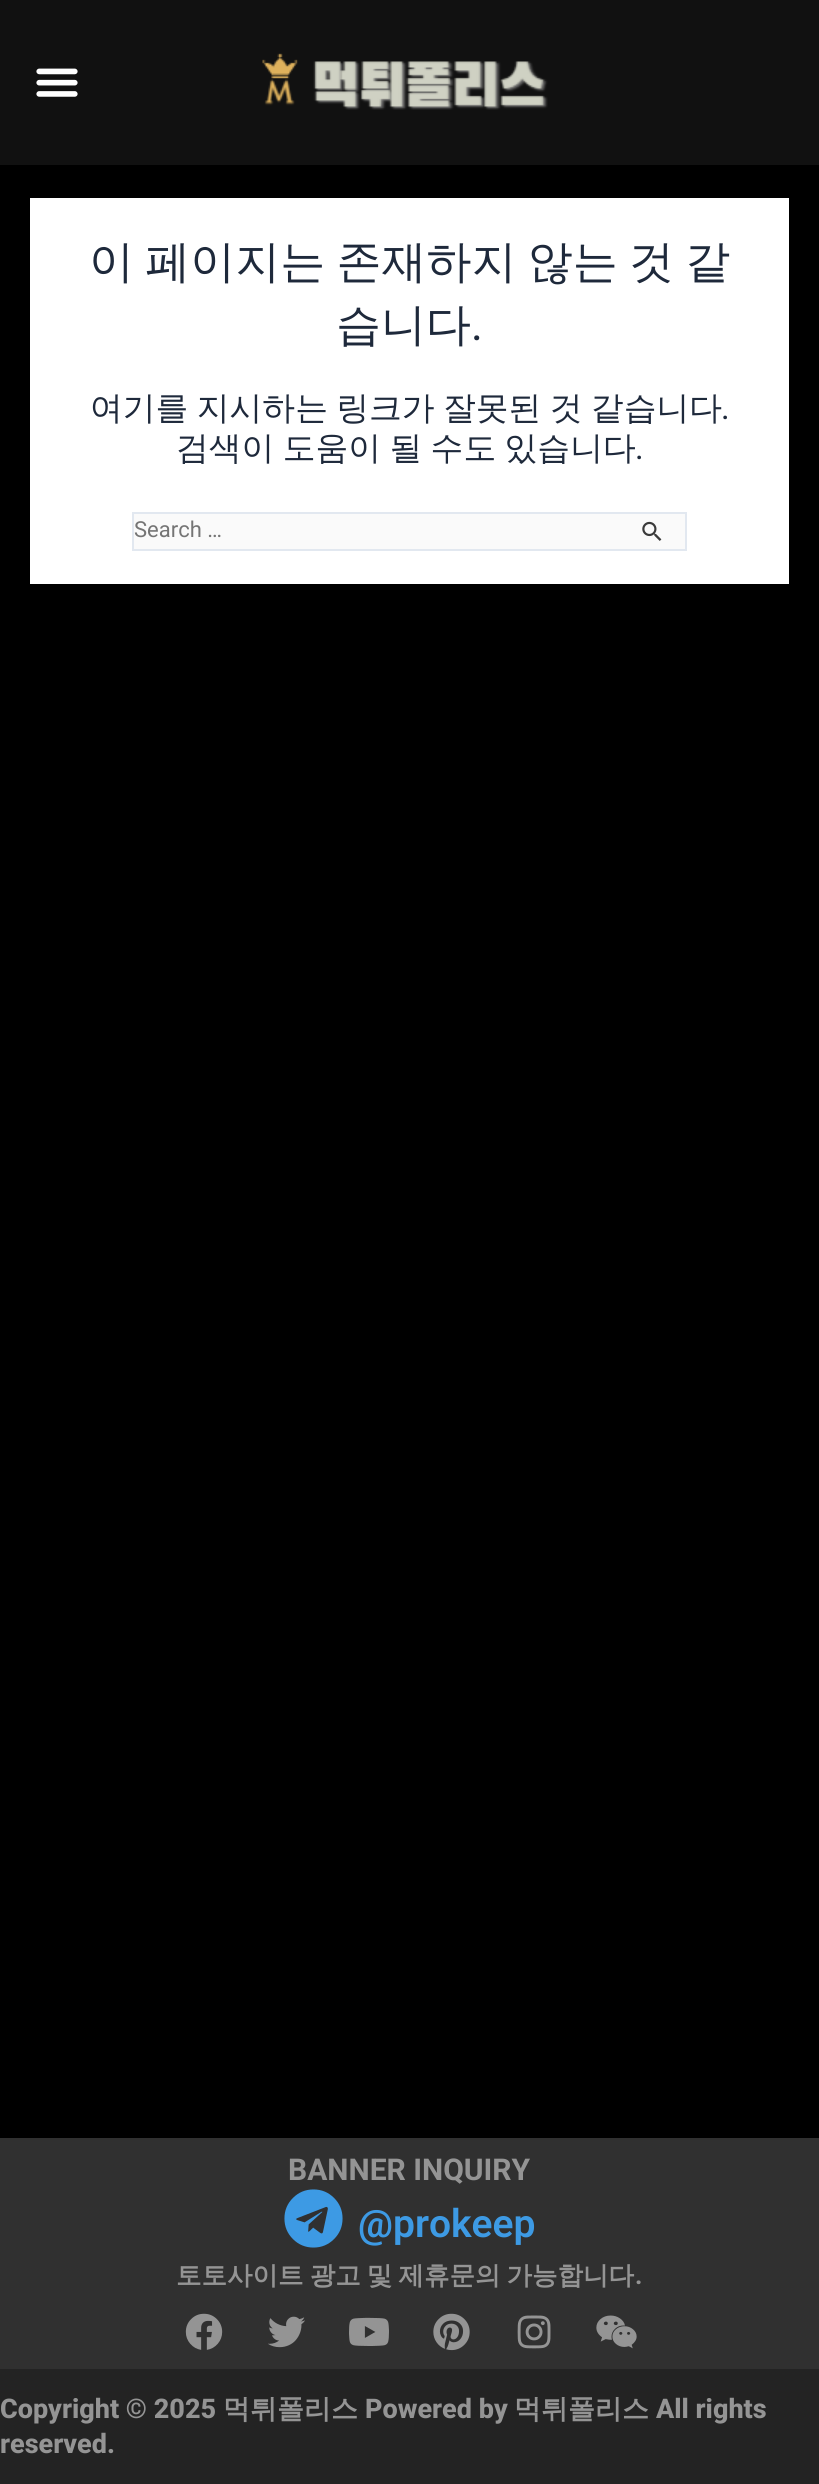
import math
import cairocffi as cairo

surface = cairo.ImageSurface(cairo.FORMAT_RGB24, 819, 2484)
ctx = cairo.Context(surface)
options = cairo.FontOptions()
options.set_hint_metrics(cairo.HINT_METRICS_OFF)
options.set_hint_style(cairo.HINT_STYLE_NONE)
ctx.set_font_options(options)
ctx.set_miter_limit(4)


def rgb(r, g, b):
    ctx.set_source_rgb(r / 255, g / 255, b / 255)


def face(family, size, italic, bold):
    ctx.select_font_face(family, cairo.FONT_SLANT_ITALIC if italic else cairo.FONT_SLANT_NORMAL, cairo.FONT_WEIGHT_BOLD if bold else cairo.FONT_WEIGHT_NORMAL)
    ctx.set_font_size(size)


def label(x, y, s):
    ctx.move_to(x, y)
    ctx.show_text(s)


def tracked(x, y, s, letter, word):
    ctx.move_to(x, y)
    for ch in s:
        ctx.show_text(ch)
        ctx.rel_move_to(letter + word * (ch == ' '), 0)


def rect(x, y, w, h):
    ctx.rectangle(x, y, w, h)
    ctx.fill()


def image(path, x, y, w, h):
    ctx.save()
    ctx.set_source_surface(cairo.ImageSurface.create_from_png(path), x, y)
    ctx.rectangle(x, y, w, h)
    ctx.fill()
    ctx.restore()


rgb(0, 0, 0)
ctx.paint()
rgb(17, 17, 17)
rect(0, 0, 819, 165)
image('image0.png', 36, 68, 42, 29)
image('image1.png', 262, 53, 286, 57)
rgb(255, 255, 255)
rect(30, 198, 759, 386)
face('WenQuanYi Zen Hei Medium', 45, 0, 0)
rgb(30, 41, 59)
tracked(89, 277, '이 페이지는 존재하지 않는 것 같', 0, -2.25)
label(336, 340, '습니다')
face('Roboto', 45, 0, 0)
label(471, 340, '.')
face('WenQuanYi Zen Hei Medium', 32.8, 0, 0)
tracked(90, 419, '여기를 지시하는 링크가 잘못된 것 같습니다', 0, -1.5)
face('Roboto', 32.8, 0, 0)
label(721, 419, '.')
face('WenQuanYi Zen Hei Medium', 32.8, 0, 0)
tracked(176, 459, '검색이 도움이 될 수도 있습니다', 0, -1.5)
face('Roboto', 32.8, 0, 0)
label(635, 459, '.')
rgb(250, 250, 250)
ctx.rectangle(133, 513, 553, 37)
ctx.fill_preserve()
rgb(226, 232, 240)
ctx.stroke()
face('Roboto', 22, 0, 0)
rgb(117, 117, 117)
label(134, 537, 'Search …')
image('image2.png', 642, 521, 20, 20)
rgb(48, 48, 48)
rect(0, 2138, 819, 231)
face('Roboto', 30, 0, 1)
rgb(148, 148, 148)
label(288, 2180, 'BANNER INQUIRY')
image('image3.png', 284, 2189, 59, 59)
face('Roboto SemiBold', 39, 0, 0)
rgb(61, 154, 228)
label(358, 2237, '@prokeep')
face('WenQuanYi Zen Hei', 25.5, 0, 1)
rgb(148, 148, 148)
tracked(176, 2284, '토토사이트 광고 및 제휴문의 가능합니다', 0, -1.5)
face('Roboto', 25.5, 0, 1)
label(635, 2284, '.')
image('image4.png', 185, 2313, 38, 37)
image('image5.png', 268, 2316, 37, 32)
image('image6.png', 349, 2317, 40, 29)
image('image7.png', 433, 2313, 37, 38)
image('image8.png', 517, 2315, 34, 34)
image('image9.png', 596, 2315, 41, 34)
rgb(35, 35, 35)
rect(0, 2369, 819, 115)
face('Roboto ExtraBold', 27, 0, 0)
rgb(148, 148, 148)
label(0, 2418, 'Copyright © 2025')
face('WenQuanYi Zen Hei', 27, 0, 1)
label(223, 2418, '먹튀폴리스')
face('Roboto ExtraBold', 27, 0, 0)
label(365, 2418, 'Powered by')
face('WenQuanYi Zen Hei', 27, 0, 1)
label(514, 2418, '먹튀폴리스')
face('Roboto ExtraBold', 27, 0, 0)
label(656, 2418, 'All rights')
label(0, 2453, 'reserved.')
surface.write_to_png('render.png')
